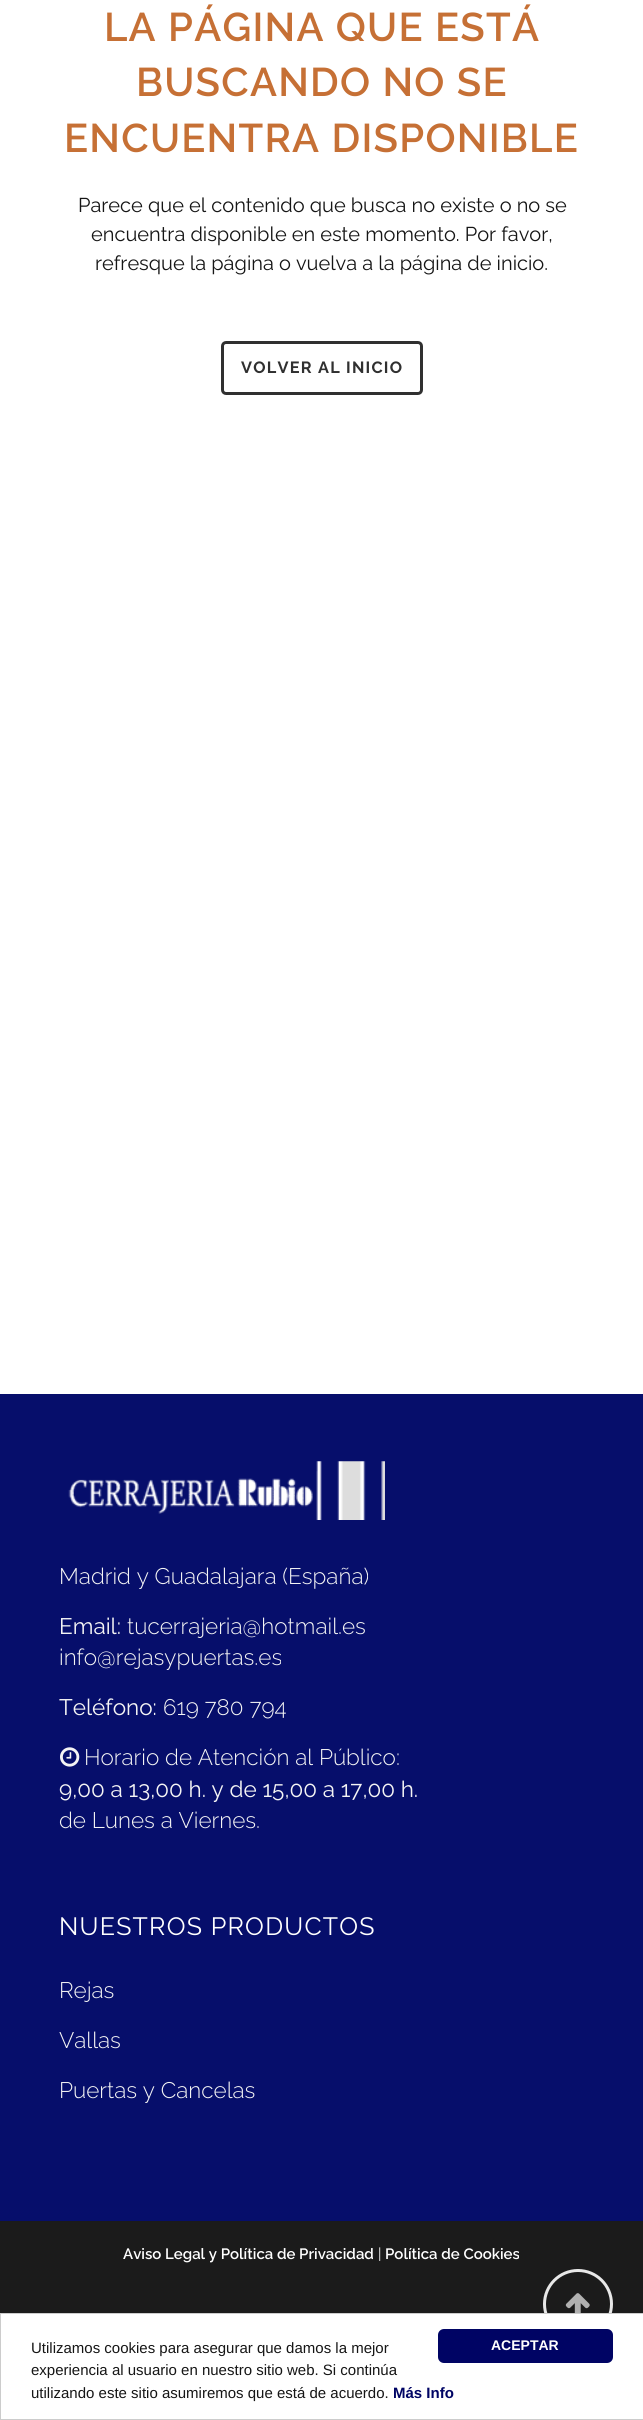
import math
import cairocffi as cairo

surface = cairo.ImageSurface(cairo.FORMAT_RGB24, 643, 2420)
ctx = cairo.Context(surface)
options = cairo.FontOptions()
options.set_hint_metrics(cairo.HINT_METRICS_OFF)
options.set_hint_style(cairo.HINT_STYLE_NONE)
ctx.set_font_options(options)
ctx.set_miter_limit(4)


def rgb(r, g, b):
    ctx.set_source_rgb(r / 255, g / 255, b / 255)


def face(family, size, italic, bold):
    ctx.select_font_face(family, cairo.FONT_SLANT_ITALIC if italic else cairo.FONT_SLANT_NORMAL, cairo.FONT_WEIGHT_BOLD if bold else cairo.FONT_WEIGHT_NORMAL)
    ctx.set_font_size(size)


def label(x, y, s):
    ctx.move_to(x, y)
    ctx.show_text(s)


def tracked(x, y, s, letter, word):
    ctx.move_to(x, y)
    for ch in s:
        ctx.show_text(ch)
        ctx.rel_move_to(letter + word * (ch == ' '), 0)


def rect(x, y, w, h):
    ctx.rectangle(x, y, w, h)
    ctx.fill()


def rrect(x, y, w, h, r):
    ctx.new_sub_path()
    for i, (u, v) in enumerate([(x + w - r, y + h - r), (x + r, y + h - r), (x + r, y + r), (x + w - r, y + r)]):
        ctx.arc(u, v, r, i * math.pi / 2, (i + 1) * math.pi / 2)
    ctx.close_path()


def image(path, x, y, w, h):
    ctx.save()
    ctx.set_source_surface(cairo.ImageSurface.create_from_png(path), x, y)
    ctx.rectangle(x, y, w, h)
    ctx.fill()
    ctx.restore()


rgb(255, 255, 255)
ctx.paint()
face('Raleway SemiBold', 40, 0, 0)
rgb(198, 112, 53)
tracked(104, 41, 'LA PÁGINA QUE ESTÁ', 1.25, 0)
tracked(136, 96, 'BUSCANDO NO SE', 1.25, 0)
tracked(64, 152, 'ENCUENTRA DISPONIBLE', 1.25, 0)
face('Raleway', 20, 0, 0)
rgb(22, 22, 22)
label(78, 212, 'Parece que el contenido que busca no existe o no se')
label(91, 241, 'encuentra disponible en este momento. Por favor,')
label(95, 270, 'refresque la página o vuelva a la página de inicio.')
rrect(222.5, 342.5, 199, 51, 3.5)
rgb(48, 48, 48)
ctx.set_line_width(3)
ctx.stroke()
face('Raleway', 16.25, 0, 1)
tracked(241, 373, 'VOLVER AL INICIO', 1.25, 0)
rgb(6, 14, 107)
rect(0, 1394, 643, 827)
image('image0.png', 68, 1461, 317, 59)
face('Raleway Light', 22.5, 0, 0)
rgb(244, 244, 244)
label(59, 1584, 'Madrid y Guadalajara (España)')
face('Raleway', 22.5, 0, 0)
label(59, 1634, 'Email:')
face('Raleway Light', 22.5, 0, 0)
label(127, 1634, 'tucerrajeria@hotmail.es')
label(59, 1665, 'info@rejasypuertas.es')
face('Raleway', 22.5, 0, 0)
label(59, 1715, 'Teléfono:')
face('Raleway Light', 22.5, 0, 0)
label(163, 1715, '619 780 794')
image('image1.png', 60, 1747, 20, 20)
label(84, 1765, 'Horario de Atención al Público:')
face('Raleway', 22.5, 0, 0)
label(59, 1797, '9,00 a 13,00 h. y de 15,00 a 17,00 h.')
face('Raleway Light', 22.5, 0, 0)
label(59, 1828, 'de Lunes a Viernes.')
face('Raleway', 25, 0, 0)
rgb(255, 255, 255)
tracked(59, 1935, 'NUESTROS PRODUCTOS', 1.25, 0)
face('Raleway Light', 22.5, 0, 0)
rgb(244, 244, 244)
label(59, 1998, 'Rejas')
label(59, 2048, 'Vallas')
label(59, 2098, 'Puertas y Cancelas')
rgb(27, 27, 27)
rect(0, 2221, 643, 92)
face('Raleway SemiBold', 15, 0, 0)
rgb(255, 255, 255)
label(123, 2259, 'Aviso Legal y Política de Privacidad')
face('Raleway', 15, 0, 0)
label(378, 2259, '|')
face('Raleway SemiBold', 15, 0, 0)
label(385, 2259, 'Política de Cookies')
ctx.new_path()
ctx.arc(578, 2304, 33.5, 0, 2 * math.pi)
rgb(232, 232, 232)
ctx.stroke()
image('image2.png', 565, 2293, 25, 20)
rgb(255, 255, 255)
rect(544, 2314, 68, 25)
ctx.rectangle(0.5, 2313.5, 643, 106)
rgb(204, 204, 204)
ctx.set_line_width(1)
ctx.stroke()
face('Liberation Sans', 15, 0, 0)
rgb(22, 22, 22)
label(31, 2353, 'Utilizamos cookies para asegurar que damos la mejor')
label(31, 2375, 'experiencia al usuario en nuestro sitio web. Si continúa')
label(31, 2398, 'utilizando este sitio asumiremos que está de acuerdo.')
face('Liberation Sans', 15, 0, 1)
rgb(0, 4, 100)
label(393, 2398, 'Más Info')
rrect(438, 2329, 175, 34, 6)
ctx.fill()
face('Liberation Sans', 14, 0, 1)
rgb(255, 255, 255)
label(491, 2350, 'ACEPTAR')
surface.write_to_png('render.png')
